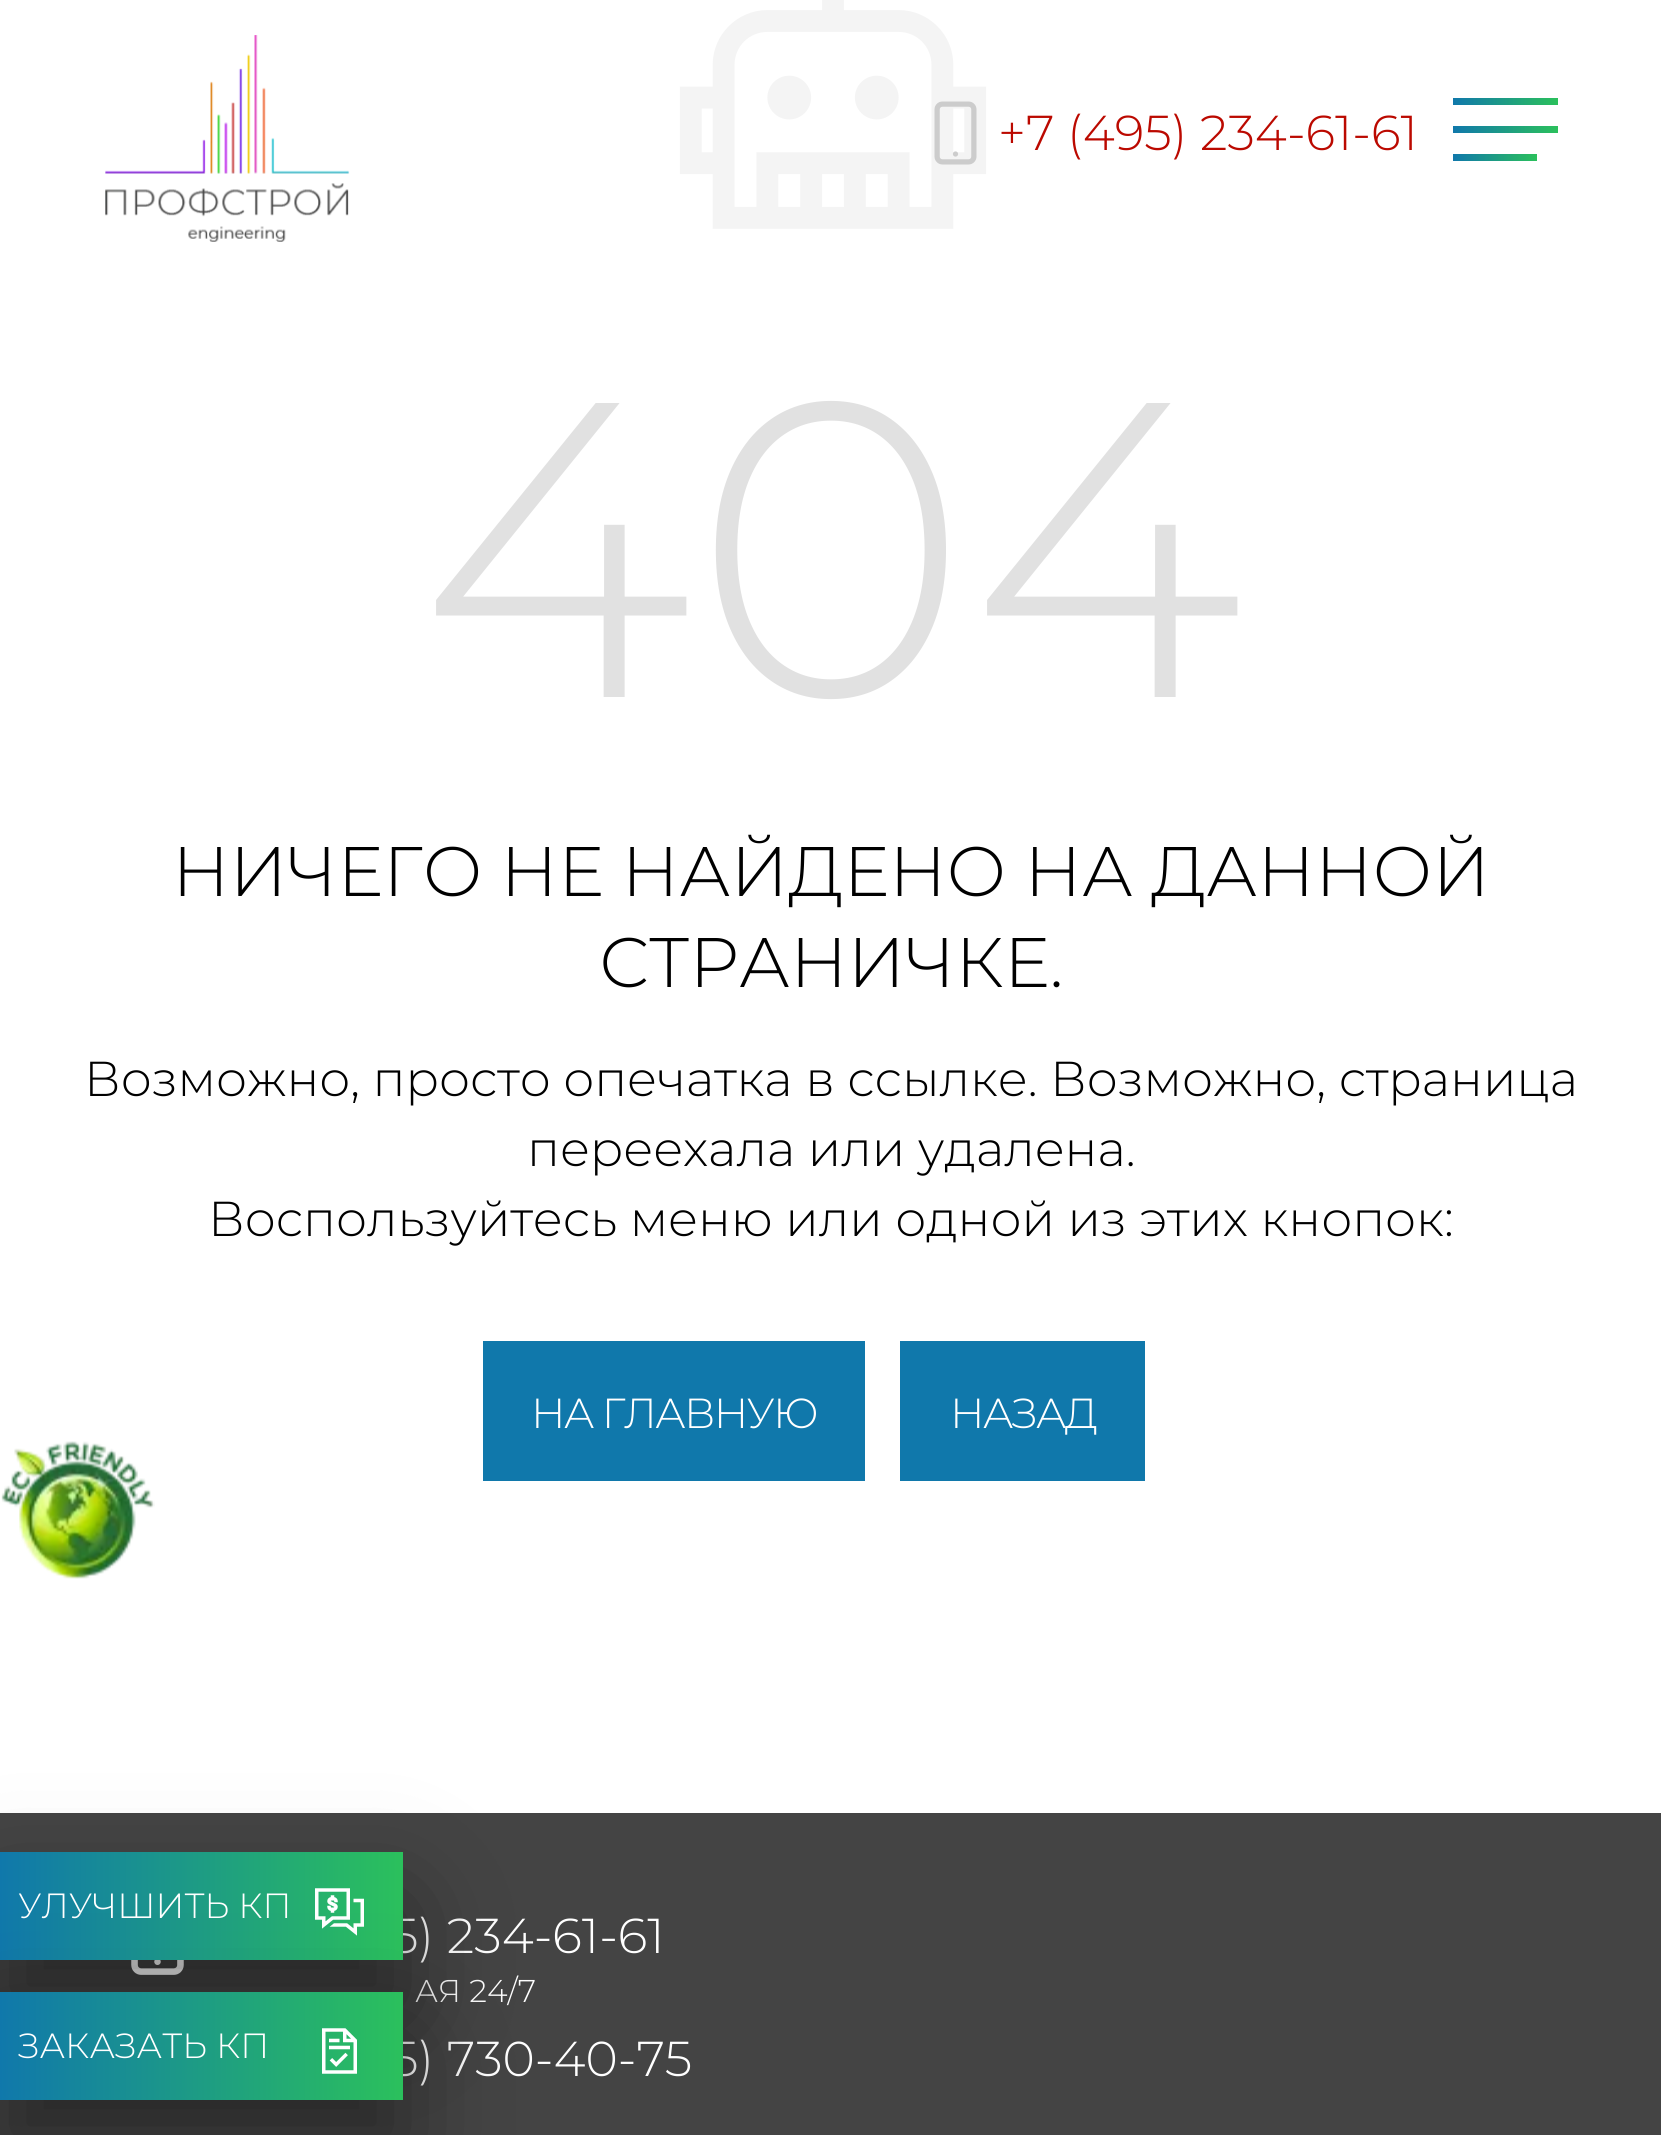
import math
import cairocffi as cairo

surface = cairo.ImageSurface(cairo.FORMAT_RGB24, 1661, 2135)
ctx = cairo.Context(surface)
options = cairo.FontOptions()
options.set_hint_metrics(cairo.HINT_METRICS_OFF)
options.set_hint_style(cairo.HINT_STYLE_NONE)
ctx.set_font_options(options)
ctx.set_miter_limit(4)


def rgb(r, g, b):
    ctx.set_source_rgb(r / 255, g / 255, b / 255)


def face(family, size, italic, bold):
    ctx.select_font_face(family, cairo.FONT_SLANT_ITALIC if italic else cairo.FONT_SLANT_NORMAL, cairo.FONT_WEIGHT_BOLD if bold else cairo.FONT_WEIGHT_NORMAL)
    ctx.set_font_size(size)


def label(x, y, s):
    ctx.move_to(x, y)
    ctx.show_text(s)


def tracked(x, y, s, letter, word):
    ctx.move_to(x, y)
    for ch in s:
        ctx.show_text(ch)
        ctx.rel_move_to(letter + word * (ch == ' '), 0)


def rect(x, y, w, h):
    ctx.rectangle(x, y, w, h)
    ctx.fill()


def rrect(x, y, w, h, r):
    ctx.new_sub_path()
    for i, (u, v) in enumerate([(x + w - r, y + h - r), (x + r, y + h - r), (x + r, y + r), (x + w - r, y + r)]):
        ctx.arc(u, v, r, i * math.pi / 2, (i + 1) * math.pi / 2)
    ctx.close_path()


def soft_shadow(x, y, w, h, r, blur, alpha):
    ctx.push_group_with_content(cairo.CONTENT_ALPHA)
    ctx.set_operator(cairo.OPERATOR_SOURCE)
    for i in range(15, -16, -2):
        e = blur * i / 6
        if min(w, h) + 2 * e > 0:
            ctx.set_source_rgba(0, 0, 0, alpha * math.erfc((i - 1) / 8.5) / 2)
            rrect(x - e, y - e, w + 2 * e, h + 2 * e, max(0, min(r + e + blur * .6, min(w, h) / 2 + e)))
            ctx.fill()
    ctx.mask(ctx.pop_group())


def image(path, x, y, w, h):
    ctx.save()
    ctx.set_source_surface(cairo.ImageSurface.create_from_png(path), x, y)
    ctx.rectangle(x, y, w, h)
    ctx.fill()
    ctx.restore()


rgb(255, 255, 255)
ctx.paint()
image('image0.png', 1, 1441, 154, 138)
image('image1.png', 105, 35, 245, 207)
image('image3.png', 679, 0, 308, 229)
image('image2.png', 934, 101, 43, 64)
face('Montserrat Light', 49, 0, 0)
rgb(187, 9, 0)
label(998, 150, '+7 (495) 234-61-61')
gradient = cairo.LinearGradient(1453, 102, 1558, 102)
gradient.add_color_stop_rgba(0, 0.063, 0.471, 0.671, 1)
gradient.add_color_stop_rgba(1, 0.169, 0.753, 0.361, 1)
ctx.set_source(gradient)
rect(1453, 98, 105, 7)
gradient = cairo.LinearGradient(1453, 130, 1558, 130)
gradient.add_color_stop_rgba(0, 0.063, 0.471, 0.671, 1)
gradient.add_color_stop_rgba(1, 0.169, 0.753, 0.361, 1)
ctx.set_source(gradient)
rect(1453, 126, 105, 7)
gradient = cairo.LinearGradient(1453, 158, 1537, 158)
gradient.add_color_stop_rgba(0, 0.063, 0.471, 0.671, 1)
gradient.add_color_stop_rgba(1, 0.169, 0.753, 0.361, 1)
ctx.set_source(gradient)
rect(1453, 154, 84, 7)
face('Montserrat Light', 420, 0, 0)
rgb(225, 225, 225)
label(418, 697, '404')
face('Montserrat Light', 70, 0, 0)
rgb(0, 0, 0)
label(172, 896, 'НИЧЕГО НЕ НАЙДЕНО НА ДАННОЙ')
label(599, 987, 'СТРАНИЧКЕ.')
face('Montserrat Light', 49, 0, 0)
label(84, 1096, 'Возможно, просто опечатка в ссылке. Возможно, страница')
label(527, 1166, 'переехала или удалена.')
label(208, 1236, 'Воспользуйтесь меню или одной из этих кнопок:')
rgb(16, 120, 171)
rect(483, 1341, 382, 140)
face('Montserrat Light', 42, 0, 0)
rgb(255, 255, 255)
tracked(531, 1428, 'НА ГЛАВНУЮ', -1.75, 0)
rgb(16, 120, 171)
rect(900, 1341, 245, 140)
rgb(255, 255, 255)
tracked(950, 1428, 'НАЗАД', -1.75, 0)
rgb(68, 68, 68)
rect(0, 1813, 1661, 322)
face('Montserrat Light', 49, 0, 0)
rgb(255, 255, 255)
label(391, 1953, '5) 234-61-61')
image('image4.png', 131, 1960, 53, 15)
face('Montserrat Light', 31.5, 0, 0)
label(415, 2002, 'АЯ 24/7')
face('Montserrat Light', 49, 0, 0)
label(391, 2076, '5) 730-40-75')
rgb(0, 0, 0)
soft_shadow(0, 1904, 403, 109, 0, 52.5, 0.4)
gradient = cairo.LinearGradient(0, 1906, 403, 1906)
gradient.add_color_stop_rgba(0, 0.063, 0.471, 0.671, 1)
gradient.add_color_stop_rgba(1, 0.169, 0.753, 0.361, 1)
ctx.set_source(gradient)
rect(0, 1852, 403, 108)
face('Montserrat Light', 35, 0, 0)
rgb(255, 255, 255)
label(18, 1918, 'УЛУЧШИТЬ КП')
image('image5.png', 315, 1888, 49, 48)
rgb(0, 0, 0)
soft_shadow(0, 2044, 403, 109, 0, 52.5, 0.4)
gradient = cairo.LinearGradient(0, 2046, 403, 2046)
gradient.add_color_stop_rgba(0, 0.063, 0.471, 0.671, 1)
gradient.add_color_stop_rgba(1, 0.169, 0.753, 0.361, 1)
ctx.set_source(gradient)
rect(0, 1992, 403, 108)
rgb(255, 255, 255)
label(18, 2058, 'ЗАКАЗАТЬ КП')
image('image6.png', 322, 2028, 35, 46)
surface.write_to_png('render.png')
